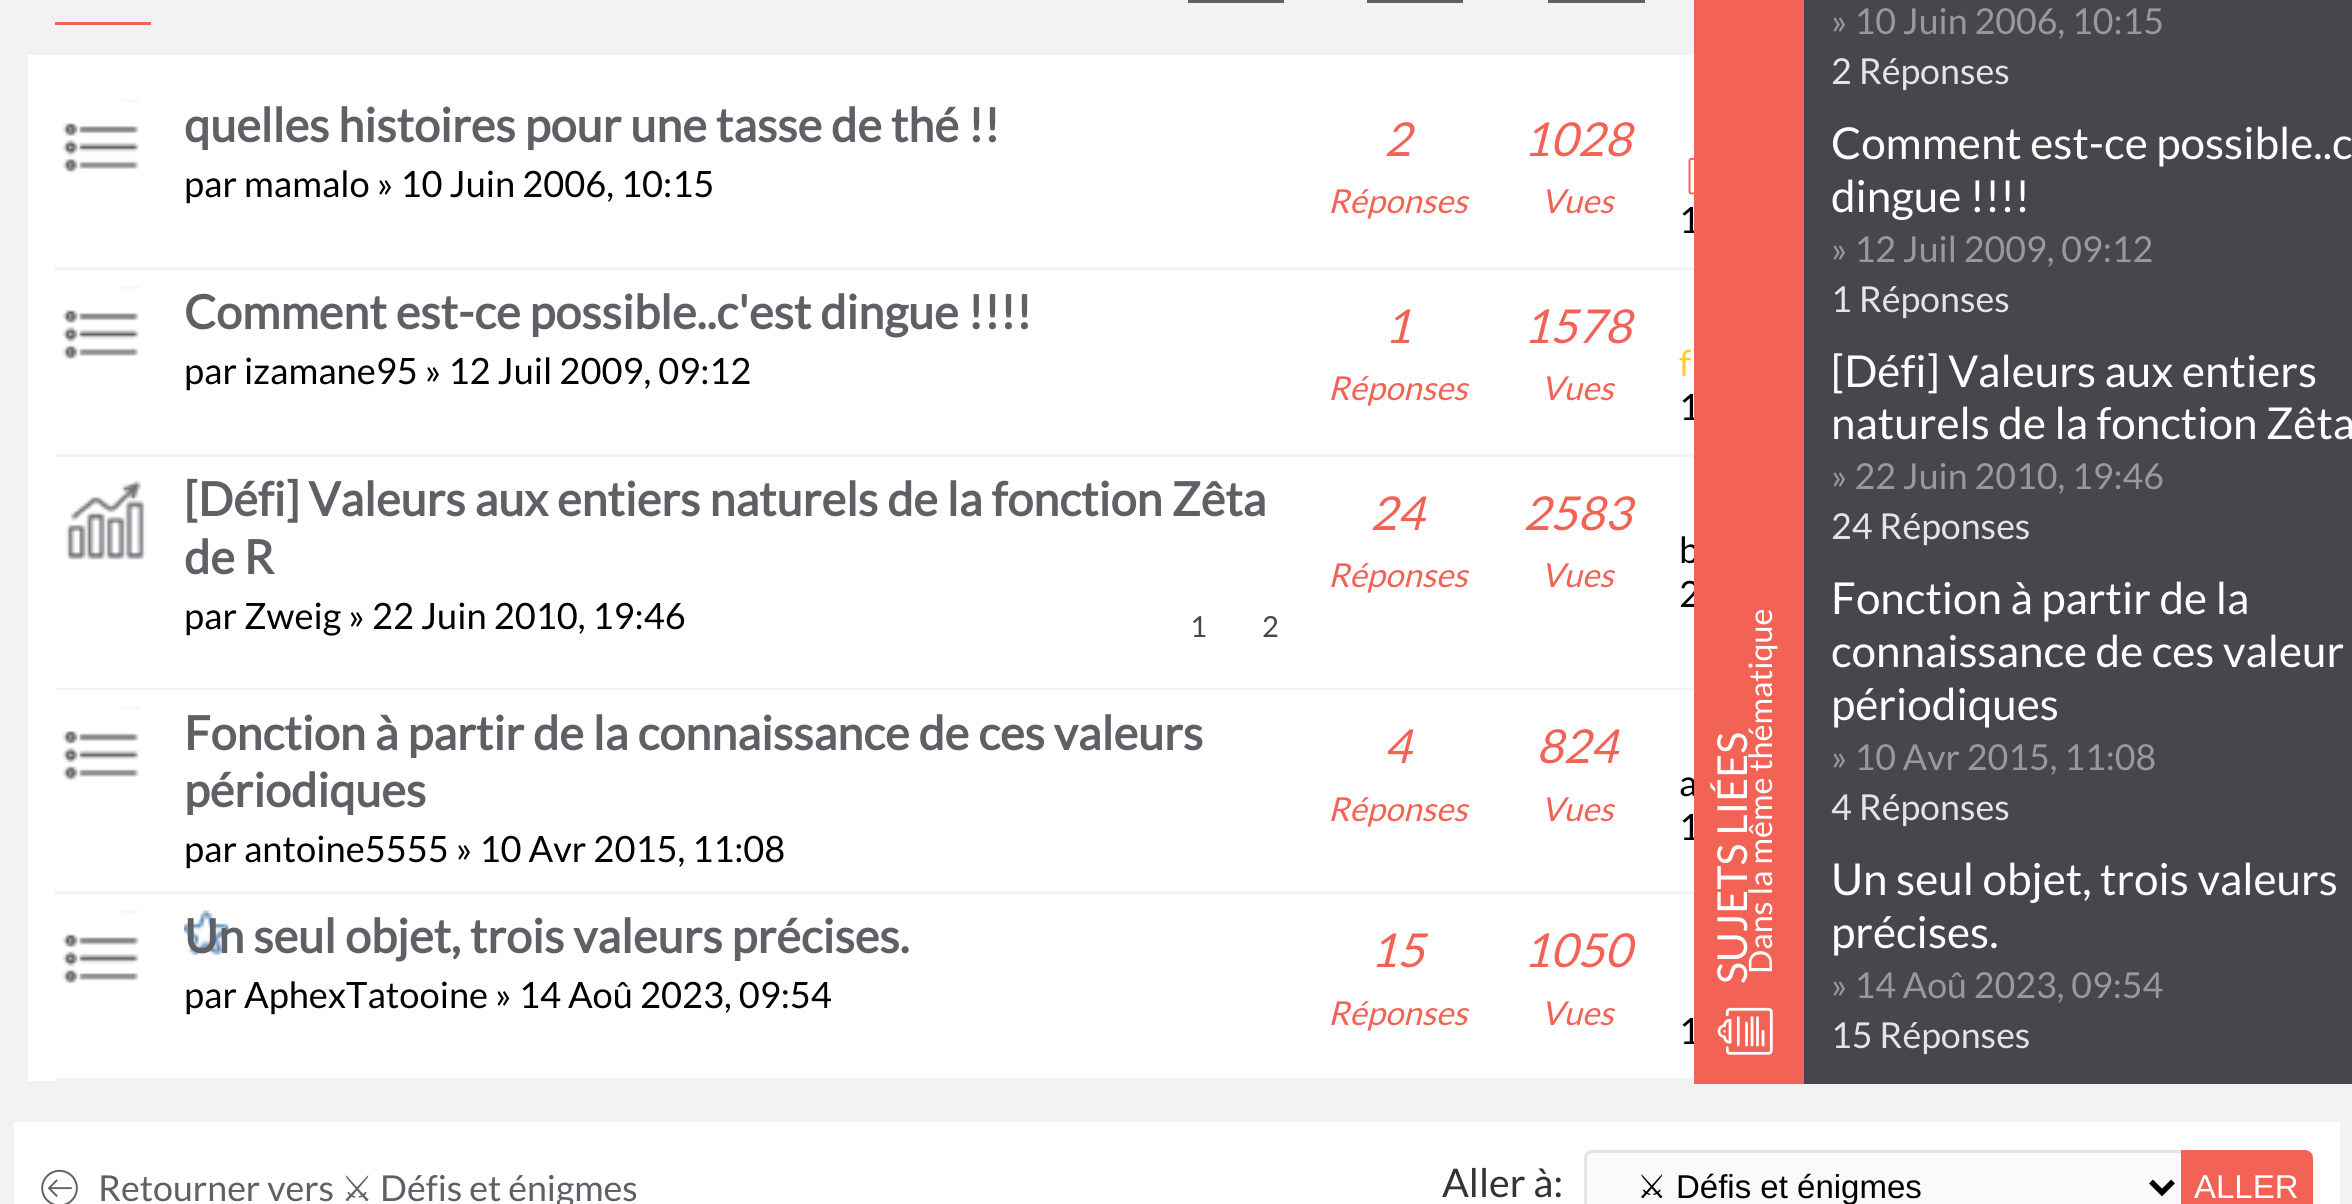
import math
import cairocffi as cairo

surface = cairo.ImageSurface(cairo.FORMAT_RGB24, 2352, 1204)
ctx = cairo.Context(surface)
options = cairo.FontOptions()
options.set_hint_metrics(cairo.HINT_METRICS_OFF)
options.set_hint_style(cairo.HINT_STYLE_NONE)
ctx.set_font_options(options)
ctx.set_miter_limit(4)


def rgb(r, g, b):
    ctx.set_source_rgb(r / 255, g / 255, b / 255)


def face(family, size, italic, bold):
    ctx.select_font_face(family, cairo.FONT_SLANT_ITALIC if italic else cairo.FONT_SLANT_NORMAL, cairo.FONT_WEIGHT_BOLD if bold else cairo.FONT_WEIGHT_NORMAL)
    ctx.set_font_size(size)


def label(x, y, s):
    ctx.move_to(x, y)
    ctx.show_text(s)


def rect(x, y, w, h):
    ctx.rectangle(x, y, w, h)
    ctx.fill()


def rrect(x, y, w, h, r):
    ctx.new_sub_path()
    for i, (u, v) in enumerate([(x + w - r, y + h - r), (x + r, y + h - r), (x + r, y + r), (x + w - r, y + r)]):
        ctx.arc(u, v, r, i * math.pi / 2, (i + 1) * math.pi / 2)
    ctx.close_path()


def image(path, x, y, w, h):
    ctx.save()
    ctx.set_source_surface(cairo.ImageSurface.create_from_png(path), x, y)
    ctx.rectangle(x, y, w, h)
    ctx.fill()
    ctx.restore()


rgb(242, 242, 242)
ctx.paint()
rgb(95, 96, 101)
rect(1188, 0, 96, 3)
rect(1367, 0, 96, 3)
rect(1548, 0, 97, 3)
rgb(242, 99, 85)
rect(55, 22, 96, 3)
rgb(255, 255, 255)
rect(28, 55, 1666, 1026)
rgb(242, 242, 242)
rect(55, 267, 1639, 3)
image('image0.png', 62, 99, 78, 75)
face('Lato', 46.75, 0, 1)
rgb(95, 96, 101)
label(184, 142, 'quelles histoires pour une tasse de thé !!')
face('Lato', 36.25, 0, 0)
rgb(0, 0, 0)
label(184, 197, 'par mamalo » 10 Juin 2006, 10:15')
face('Lato', 46.75, 1, 0)
rgb(242, 99, 85)
label(1384, 156, '2')
face('Lato', 33, 1, 0)
label(1328, 213, 'Réponses')
face('Lato', 46.75, 1, 0)
label(1523, 156, '1028')
face('Lato', 33, 1, 0)
label(1541, 213, 'Vues')
image('image1.png', 1688, 157, 6, 38)
face('Lato', 36.25, 0, 0)
rgb(0, 0, 0)
label(1679, 233, '1')
rgb(242, 242, 242)
rect(55, 454, 1639, 3)
image('image2.png', 62, 286, 78, 75)
face('Lato', 46.75, 0, 1)
rgb(95, 96, 101)
label(184, 329, 'Comment est-ce possible..c\'est dingue !!!!')
face('Lato', 36.25, 0, 0)
rgb(0, 0, 0)
label(184, 384, 'par izamane95 » 12 Juil 2009, 09:12')
face('Lato', 46.75, 1, 0)
rgb(242, 99, 85)
label(1384, 343, '1')
face('Lato', 33, 1, 0)
label(1328, 400, 'Réponses')
face('Lato', 46.75, 1, 0)
label(1523, 343, '1578')
face('Lato', 33, 1, 0)
label(1541, 400, 'Vues')
face('Lato', 36.25, 0, 0)
rgb(255, 204, 51)
label(1679, 376, 'f')
rgb(0, 0, 0)
label(1679, 420, '1')
rgb(242, 242, 242)
rect(55, 688, 1639, 2)
image('image3.png', 65, 480, 81, 80)
face('Lato', 46.75, 0, 1)
rgb(95, 96, 101)
label(184, 516, '[Défi] Valeurs aux entiers naturels de la fonction Zêta')
label(184, 574, 'de R')
face('Lato', 36.25, 0, 0)
rgb(0, 0, 0)
label(184, 629, 'par Zweig » 22 Juin 2010, 19:46')
face('Lato', 29, 0, 0)
rgb(70, 71, 76)
label(1190, 637, '1')
label(1262, 637, '2')
face('Lato', 46.75, 1, 0)
rgb(242, 99, 85)
label(1370, 530, '24')
face('Lato', 33, 1, 0)
label(1328, 587, 'Réponses')
face('Lato', 46.75, 1, 0)
label(1523, 530, '2583')
face('Lato', 33, 1, 0)
label(1541, 587, 'Vues')
face('Lato', 36.25, 0, 0)
rgb(0, 0, 0)
label(1679, 563, 'b')
label(1679, 607, '2')
rgb(242, 242, 242)
rect(55, 891, 1639, 3)
image('image4.png', 62, 707, 78, 75)
face('Lato', 46.75, 0, 1)
rgb(95, 96, 101)
label(184, 750, 'Fonction à partir de la connaissance de ces valeurs')
label(184, 807, 'périodiques')
face('Lato', 36.25, 0, 0)
rgb(0, 0, 0)
label(184, 862, 'par antoine5555 » 10 Avr 2015, 11:08')
face('Lato', 46.75, 1, 0)
rgb(242, 99, 85)
label(1384, 763, '4')
face('Lato', 33, 1, 0)
label(1328, 821, 'Réponses')
face('Lato', 46.75, 1, 0)
label(1536, 763, '824')
face('Lato', 33, 1, 0)
label(1541, 821, 'Vues')
face('Lato', 36.25, 0, 0)
rgb(0, 0, 0)
label(1679, 796, 'a')
label(1679, 840, '1')
rgb(242, 242, 242)
rect(55, 1078, 1639, 3)
image('image5.png', 62, 910, 78, 75)
image('image6.png', 184, 910, 45, 45)
face('Lato', 46.75, 0, 1)
rgb(95, 96, 101)
label(184, 953, 'Un seul objet, trois valeurs précises.')
face('Lato', 36.25, 0, 0)
rgb(0, 0, 0)
label(184, 1008, 'par AphexTatooine » 14 Aoû 2023, 09:54')
face('Lato', 46.75, 1, 0)
rgb(242, 99, 85)
label(1370, 967, '15')
face('Lato', 33, 1, 0)
label(1328, 1025, 'Réponses')
face('Lato', 46.75, 1, 0)
label(1523, 967, '1050')
face('Lato', 33, 1, 0)
label(1541, 1025, 'Vues')
face('Lato', 36.25, 0, 0)
rgb(0, 0, 0)
label(1679, 1044, '1')
rgb(242, 99, 85)
rect(1694, 0, 110, 1084)
face('Lato', 41.25, 0, 0)
rgb(255, 255, 255)
ctx.save()
ctx.translate(1747, 984)
ctx.rotate(-90 * math.pi / 180)
label(0, 0, 'SUJETS LIÉES')
ctx.restore()
image('image7.png', 1717, 1007, 56, 48)
face('Lato', 32.25, 0, 0)
ctx.save()
ctx.translate(1772, 974)
ctx.rotate(-90 * math.pi / 180)
label(0, 0, 'Dans la même thématique')
ctx.restore()
rgb(69, 71, 77)
rect(1804, 0, 548, 1084)
face('Lato', 35.75, 0, 0)
rgb(153, 153, 153)
label(1831, 34, '» 10 Juin 2006, 10:15')
rgb(228, 228, 228)
label(1831, 84, '2 Réponses')
face('Lato', 44, 0, 0)
rgb(255, 255, 255)
label(1831, 159, 'Comment est-ce possible..c')
label(1831, 212, 'dingue !!!!')
face('Lato', 35.75, 0, 0)
rgb(153, 153, 153)
label(1831, 262, '» 12 Juil 2009, 09:12')
rgb(228, 228, 228)
label(1831, 312, '1 Réponses')
face('Lato', 44, 0, 0)
rgb(255, 255, 255)
label(1831, 387, '[Défi] Valeurs aux entiers')
label(1831, 439, 'naturels de la fonction Zêta')
face('Lato', 35.75, 0, 0)
rgb(153, 153, 153)
label(1831, 489, '» 22 Juin 2010, 19:46')
rgb(228, 228, 228)
label(1831, 539, '24 Réponses')
face('Lato', 44, 0, 0)
rgb(255, 255, 255)
label(1831, 614, 'Fonction à partir de la')
label(1831, 667, 'connaissance de ces valeur')
label(1831, 720, 'périodiques')
face('Lato', 35.75, 0, 0)
rgb(153, 153, 153)
label(1831, 770, '» 10 Avr 2015, 11:08')
rgb(228, 228, 228)
label(1831, 820, '4 Réponses')
face('Lato', 44, 0, 0)
rgb(255, 255, 255)
label(1831, 895, 'Un seul objet, trois valeurs')
label(1831, 948, 'précises.')
face('Lato', 35.75, 0, 0)
rgb(153, 153, 153)
label(1831, 998, '» 14 Aoû 2023, 09:54')
rgb(228, 228, 228)
label(1831, 1048, '15 Réponses')
rgb(255, 255, 255)
rect(14, 1122, 2326, 82)
image('image8.png', 41, 1169, 37, 35)
rgb(95, 96, 101)
label(98, 1201, 'Retourner vers')
face('DejaVu Sans', 35.75, 0, 0)
label(341, 1201, '⚔')
face('Lato', 35.75, 0, 0)
label(380, 1201, 'Défis et énigmes')
face('Lato', 39.5, 0, 0)
rgb(51, 51, 51)
label(1442, 1197, 'Aller à:')
rgb(250, 250, 250)
rrect(1585.5, 1151.5, 599, 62, 6.5)
ctx.fill_preserve()
rgb(228, 228, 228)
ctx.set_line_width(3)
ctx.stroke()
ctx.new_path()
ctx.move_to(2151, 1181.5)
ctx.line_to(2162, 1192.5)
ctx.line_to(2173, 1181.5)
rgb(0, 0, 0)
ctx.set_line_width(5.5)
ctx.stroke()
face('DejaVu Sans', 33, 0, 0)
label(1637, 1198, '⚔')
face('Liberation Sans', 33, 0, 0)
label(1676, 1198, 'Défis et énigmes')
rgb(242, 99, 85)
ctx.new_path()
ctx.move_to(2182.5, 1151.5)
ctx.line_to(2305, 1151.5)
ctx.curve_to(2308.5, 1151.5, 2311.5, 1154.5, 2311.5, 1158)
ctx.line_to(2311.5, 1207)
ctx.curve_to(2311.5, 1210.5, 2308.5, 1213.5, 2305, 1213.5)
ctx.line_to(2182.5, 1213.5)
ctx.close_path()
ctx.fill_preserve()
ctx.set_line_width(3)
ctx.stroke()
rgb(255, 255, 255)
label(2194, 1198, 'ALLER')
surface.write_to_png('render.png')
